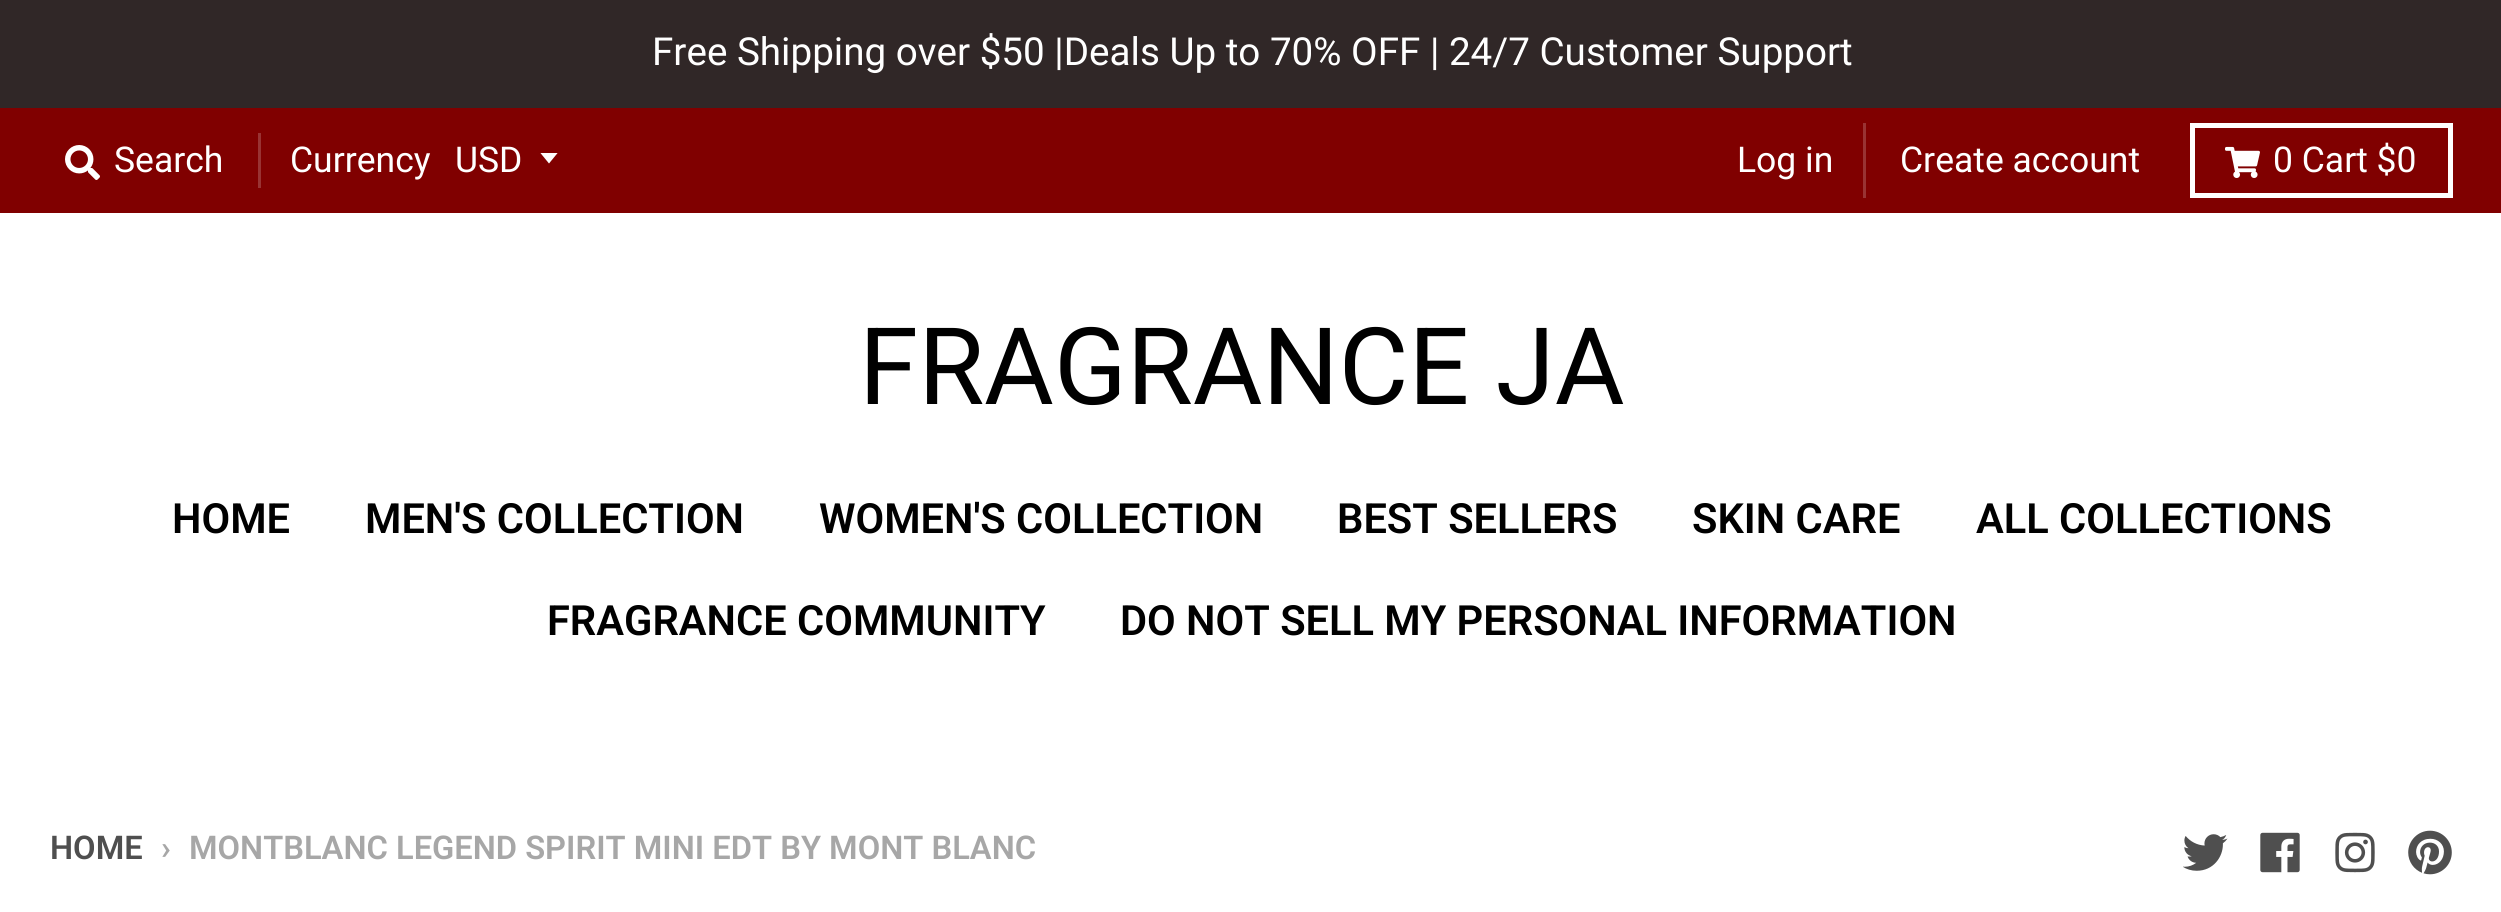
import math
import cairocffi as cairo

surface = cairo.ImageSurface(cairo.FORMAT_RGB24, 2501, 912)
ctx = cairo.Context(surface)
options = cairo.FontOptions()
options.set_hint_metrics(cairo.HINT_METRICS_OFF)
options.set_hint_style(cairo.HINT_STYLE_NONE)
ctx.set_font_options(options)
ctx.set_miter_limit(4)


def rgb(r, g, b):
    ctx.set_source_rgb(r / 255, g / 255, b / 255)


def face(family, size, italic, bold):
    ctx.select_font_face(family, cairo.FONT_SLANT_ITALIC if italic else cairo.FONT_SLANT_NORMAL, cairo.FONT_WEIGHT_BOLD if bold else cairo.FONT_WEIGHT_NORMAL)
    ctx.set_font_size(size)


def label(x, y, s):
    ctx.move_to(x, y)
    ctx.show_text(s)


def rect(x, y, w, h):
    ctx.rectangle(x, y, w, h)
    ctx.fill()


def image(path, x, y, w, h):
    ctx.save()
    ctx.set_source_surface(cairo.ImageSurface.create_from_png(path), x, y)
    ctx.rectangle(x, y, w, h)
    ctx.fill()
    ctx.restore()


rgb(255, 255, 255)
ctx.paint()
rgb(48, 39, 39)
rect(0, 0, 2501, 108)
face('Roboto', 38.6, 0, 0)
rgb(255, 255, 255)
label(652, 65, 'Free Shipping over $50 |Deals Up to 70% OFF | 24/7 Customer Support')
rgb(128, 0, 0)
rect(0, 108, 2501, 105)
image('image0.png', 65, 145, 35, 35)
face('Roboto', 35.5, 0, 0)
rgb(255, 255, 255)
label(114, 172, 'Search')
rgb(153, 51, 51)
rect(258, 133, 3, 55)
rgb(255, 255, 255)
label(290, 172, 'Currency')
ctx.save()
ctx.rectangle(540, 153, 20, 12)
ctx.clip()
ctx.new_path()
ctx.move_to(540, 152.5)
ctx.line_to(549, 163.5)
ctx.line_to(558, 152.5)
ctx.close_path()
ctx.fill()
ctx.restore()
label(455, 172, 'USD')
rgb(153, 51, 51)
rect(1863, 123, 3, 75)
rgb(255, 255, 255)
label(1737, 172, 'Log in')
label(1900, 172, 'Create account')
ctx.rectangle(2192.5, 125.5, 258, 70)
ctx.set_line_width(5)
ctx.stroke()
image('image1.png', 2225, 146, 35, 32)
label(2273, 172, '0 Cart $0')
face('Roboto', 107, 0, 0)
rgb(0, 0, 0)
label(859, 404, 'FRAGRANCE JA')
face('Roboto SemiBold', 41.6, 0, 0)
label(172, 533, 'HOME')
label(365, 533, 'MEN\'S COLLECTION')
label(819, 533, 'WOMEN\'S COLLECTION')
label(1337, 533, 'BEST SELLERS')
label(1692, 533, 'SKIN CARE')
label(1976, 533, 'ALL COLLECTIONS')
label(547, 635, 'FRAGRANCE COMMUNITY')
label(1120, 635, 'DO NOT SELL MY PERSONAL INFORMATION')
face('Roboto SemiBold', 32.65, 0, 0)
rgb(79, 79, 79)
label(50, 859, 'HOME')
rgb(167, 167, 167)
label(161, 859, '›')
label(189, 859, 'MONTBLANC LEGEND SPIRIT MINI EDT BY MONT BLANC')
image('image2.png', 2183, 834, 45, 37)
image('image3.png', 2260, 832, 40, 41)
image('image4.png', 2335, 832, 40, 41)
image('image5.png', 2408, 830, 44, 45)
surface.write_to_png('render.png')
